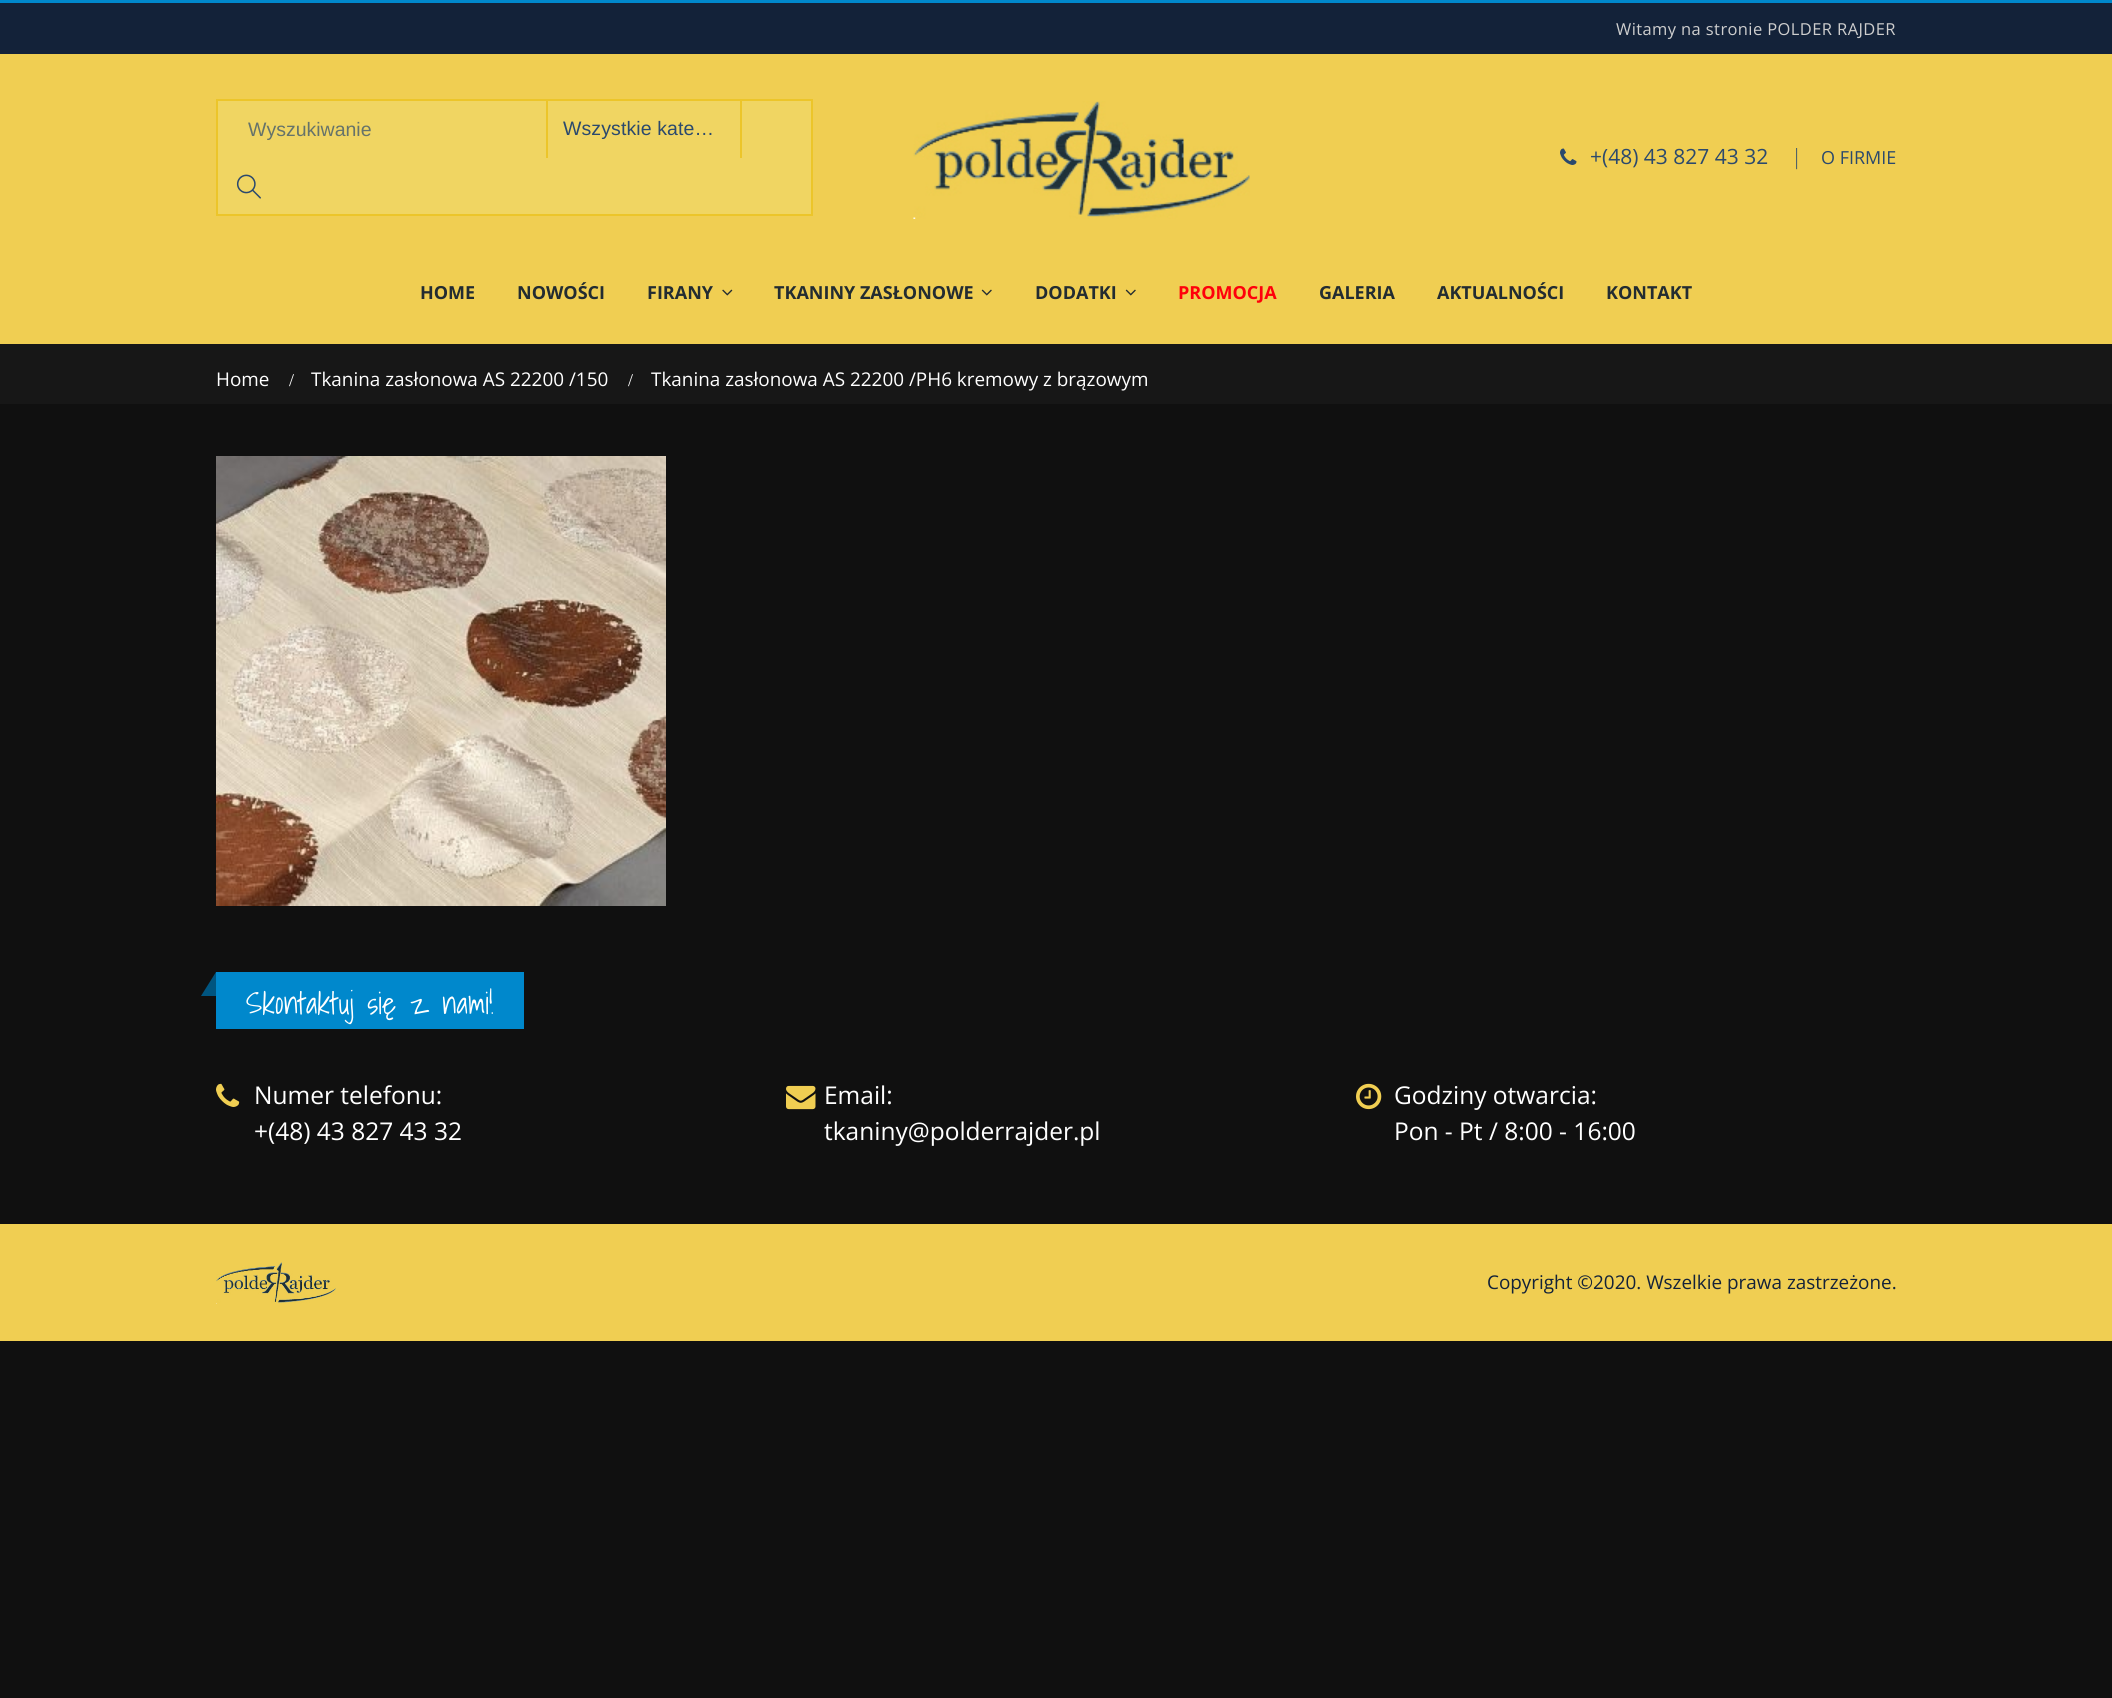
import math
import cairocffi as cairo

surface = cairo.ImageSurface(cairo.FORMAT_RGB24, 2112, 1698)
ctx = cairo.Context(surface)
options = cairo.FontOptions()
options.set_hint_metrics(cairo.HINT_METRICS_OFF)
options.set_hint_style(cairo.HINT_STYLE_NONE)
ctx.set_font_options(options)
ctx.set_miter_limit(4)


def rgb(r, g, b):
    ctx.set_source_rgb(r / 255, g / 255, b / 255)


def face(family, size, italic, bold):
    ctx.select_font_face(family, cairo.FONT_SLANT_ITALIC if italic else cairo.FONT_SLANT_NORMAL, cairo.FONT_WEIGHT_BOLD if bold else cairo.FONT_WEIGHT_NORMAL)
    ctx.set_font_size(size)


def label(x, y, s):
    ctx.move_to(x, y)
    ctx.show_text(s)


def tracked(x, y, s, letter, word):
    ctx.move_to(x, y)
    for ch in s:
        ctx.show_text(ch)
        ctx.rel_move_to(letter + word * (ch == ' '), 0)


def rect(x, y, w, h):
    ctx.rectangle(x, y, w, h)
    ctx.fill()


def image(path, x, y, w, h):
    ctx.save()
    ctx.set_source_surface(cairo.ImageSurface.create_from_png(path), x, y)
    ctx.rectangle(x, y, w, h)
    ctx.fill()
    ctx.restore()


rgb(16, 16, 16)
ctx.paint()
rgb(240, 206, 82)
rect(0, 54, 2112, 290)
rgb(0, 136, 204)
rect(0, 0, 2112, 3)
rgb(19, 34, 57)
rect(0, 3, 2112, 51)
face('Open Sans', 16.5, 0, 0)
rgb(206, 206, 206)
tracked(1616, 35, 'Witamy na stronie POLDER RAJDER', 0.4, 0)
rgb(240, 213, 98)
ctx.rectangle(217, 100, 595, 115)
ctx.fill_preserve()
rgb(236, 197, 42)
ctx.stroke()
rect(546, 101, 2, 57)
face('Liberation Sans', 19.5, 0, 0)
rgb(102, 115, 106)
label(248, 136, 'Wyszukiwanie')
rgb(236, 197, 42)
rect(740, 101, 2, 57)
rgb(43, 73, 109)
tracked(563, 135, 'Wszystkie kate…', 0.1, 0)
image('image0.png', 236, 174, 25, 25)
image('image1.png', 913, 101, 337, 118)
image('image2.png', 1560, 148, 17, 17)
face('Open Sans', 21, 0, 0)
label(1590, 164, '+(48) 43 827 43 32')
face('Open Sans Light', 21, 0, 0)
label(1791, 164, '|')
face('Open Sans', 18, 0, 0)
label(1821, 164, 'O FIRMIE')
face('Open Sans', 18, 0, 1)
rgb(35, 44, 49)
label(420, 299, 'HOME')
label(517, 299, 'NOWOŚCI')
label(647, 299, 'FIRANY')
image('image3.png', 722, 289, 11, 7)
label(774, 299, 'TKANINY ZASŁONOWE')
image('image4.png', 981, 289, 11, 7)
label(1035, 299, 'DODATKI')
image('image4.png', 1125, 289, 11, 7)
rgb(255, 0, 10)
label(1178, 299, 'PROMOCJA')
rgb(35, 44, 49)
label(1319, 299, 'GALERIA')
label(1437, 299, 'AKTUALNOŚCI')
label(1606, 299, 'KONTAKT')
rgb(23, 23, 23)
rect(0, 344, 2112, 60)
face('Open Sans', 18.9, 0, 0)
rgb(255, 255, 255)
label(216, 386, 'Home')
face('Liberation Serif', 18, 0, 0)
label(289, 386, '/')
face('Open Sans', 18.9, 0, 0)
label(311, 386, 'Tkanina zasłonowa AS 22200 /150')
face('Liberation Serif', 18, 0, 0)
label(628, 386, '/')
face('Open Sans', 18.9, 0, 0)
label(651, 386, 'Tkanina zasłonowa AS 22200 /PH6 kremowy z brązowym')
image('image5.png', 216, 456, 450, 450)
rgb(0, 136, 204)
rect(216, 972, 308, 57)
rgb(0, 85, 128)
ctx.new_path()
ctx.move_to(216, 972)
ctx.line_to(216, 996)
ctx.line_to(201, 996)
ctx.close_path()
ctx.fill()
face('Shadows Into Light Light', 30.25, 0, 0)
rgb(255, 255, 255)
label(246, 1014, 'Skontaktuj się z nami!')
image('image6.png', 216, 1083, 24, 24)
face('Open Sans', 24.5, 0, 0)
label(254, 1104, 'Numer telefonu:')
label(254, 1140, '+(48) 43 827 43 32')
image('image7.png', 786, 1085, 30, 25)
label(824, 1104, 'Email:')
label(824, 1140, 'tkaniny@polderrajder.pl')
image('image8.png', 1356, 1083, 26, 27)
label(1394, 1104, 'Godziny otwarcia:')
label(1394, 1140, 'Pon - Pt / 8:00 - 16:00')
rgb(240, 206, 82)
rect(0, 1224, 2112, 117)
image('image9.png', 216, 1262, 120, 42)
face('Open Sans', 18.9, 0, 0)
rgb(19, 34, 57)
label(1487, 1289, 'Copyright ©2020. Wszelkie prawa zastrzeżone.')
surface.write_to_png('render.png')
